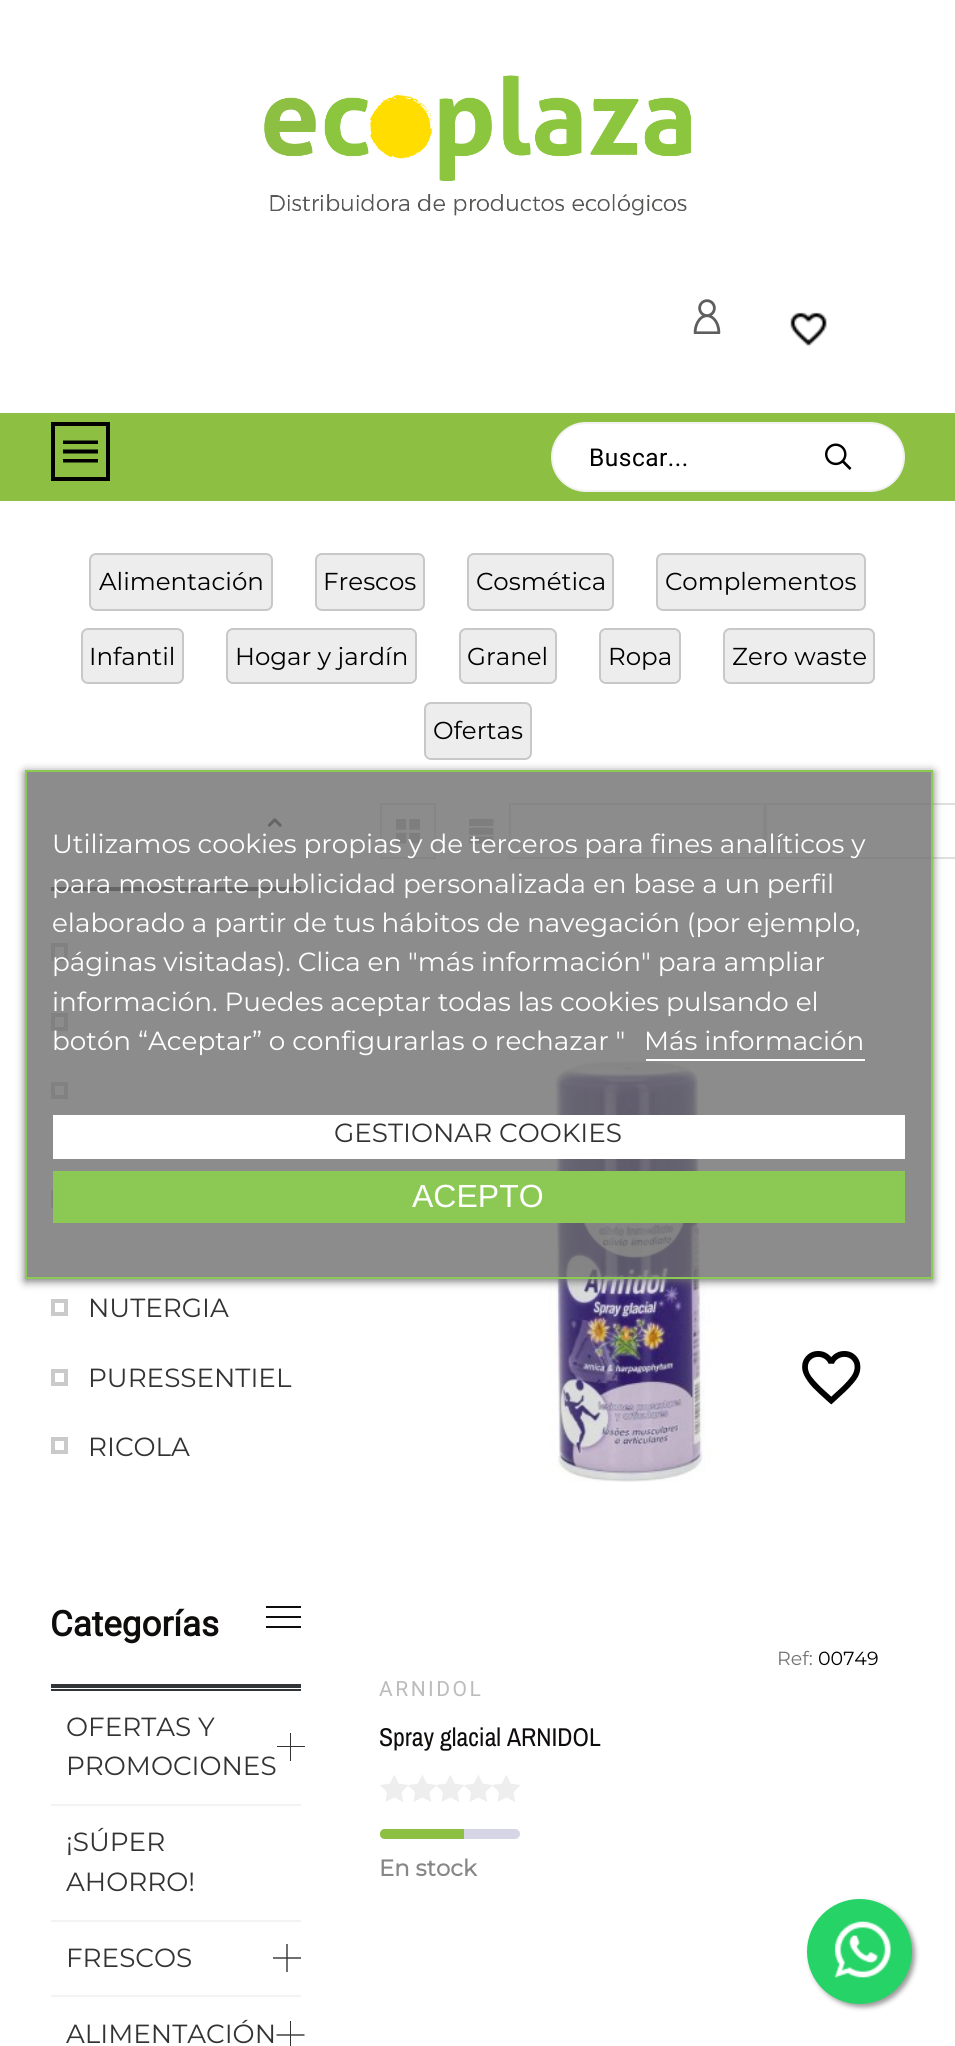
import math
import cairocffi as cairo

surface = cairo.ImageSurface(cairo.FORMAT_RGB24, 955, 2046)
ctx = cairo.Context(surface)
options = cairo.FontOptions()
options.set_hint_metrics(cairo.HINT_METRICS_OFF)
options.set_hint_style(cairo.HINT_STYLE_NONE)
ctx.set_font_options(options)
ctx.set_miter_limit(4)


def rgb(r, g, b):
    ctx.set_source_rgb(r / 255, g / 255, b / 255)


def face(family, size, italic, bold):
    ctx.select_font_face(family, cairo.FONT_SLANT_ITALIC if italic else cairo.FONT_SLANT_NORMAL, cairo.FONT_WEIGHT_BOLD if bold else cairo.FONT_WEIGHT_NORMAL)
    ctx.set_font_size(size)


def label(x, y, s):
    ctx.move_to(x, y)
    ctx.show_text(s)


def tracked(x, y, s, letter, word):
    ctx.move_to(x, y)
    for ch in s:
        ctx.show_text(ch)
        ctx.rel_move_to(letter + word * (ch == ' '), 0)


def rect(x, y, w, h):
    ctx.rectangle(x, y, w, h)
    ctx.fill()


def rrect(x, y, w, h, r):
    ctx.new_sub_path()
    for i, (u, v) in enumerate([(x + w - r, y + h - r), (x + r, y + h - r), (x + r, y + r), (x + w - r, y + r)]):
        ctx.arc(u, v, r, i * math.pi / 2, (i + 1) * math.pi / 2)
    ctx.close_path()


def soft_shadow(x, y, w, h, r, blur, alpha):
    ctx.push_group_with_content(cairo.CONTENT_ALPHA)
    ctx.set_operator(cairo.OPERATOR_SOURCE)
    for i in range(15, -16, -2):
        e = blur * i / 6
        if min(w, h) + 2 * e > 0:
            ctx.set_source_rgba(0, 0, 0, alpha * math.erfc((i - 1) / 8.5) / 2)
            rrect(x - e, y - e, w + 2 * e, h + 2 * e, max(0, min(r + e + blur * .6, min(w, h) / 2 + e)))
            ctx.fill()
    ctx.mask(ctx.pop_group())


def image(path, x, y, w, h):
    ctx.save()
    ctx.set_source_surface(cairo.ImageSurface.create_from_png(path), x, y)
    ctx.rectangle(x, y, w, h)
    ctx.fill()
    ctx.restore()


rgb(255, 255, 255)
ctx.paint()
image('image0.png', 264, 75, 428, 141)
image('image1.png', 693, 299, 28, 35)
image('image2.png', 790, 312, 37, 35)
rgb(141, 192, 66)
rect(0, 413, 955, 88)
ctx.rectangle(53, 424, 55, 55)
rgb(0, 0, 0)
ctx.set_line_width(4)
ctx.stroke()
ctx.new_path()
ctx.move_to(63, 462.5)
ctx.line_to(98, 462.5)
ctx.line_to(98, 459)
ctx.line_to(63, 459)
ctx.close_path()
ctx.move_to(63, 453.5)
ctx.line_to(98, 453.5)
ctx.line_to(98, 449.5)
ctx.line_to(63, 449.5)
ctx.close_path()
ctx.move_to(63, 440.5)
ctx.line_to(63, 444)
ctx.line_to(98, 444)
ctx.line_to(98, 440.5)
ctx.close_path()
ctx.fill()
rgb(255, 255, 255)
rrect(552, 423, 352, 68, 34)
ctx.fill_preserve()
rgb(242, 242, 242)
ctx.set_line_width(2)
ctx.stroke()
face('Roboto', 24.5, 0, 0)
rgb(0, 0, 0)
tracked(589, 466, 'Buscar...', 0.5, 0)
image('image3.png', 825, 443, 27, 27)
rgb(237, 237, 237)
rrect(425, 703, 106, 56, 6)
ctx.fill_preserve()
rgb(202, 199, 199)
ctx.stroke()
rgb(49, 53, 55)
rect(51, 887, 250, 4)
image('image4.png', 268, 818, 14, 9)
ctx.rectangle(53, 945, 13, 14)
rgb(202, 202, 202)
ctx.set_line_width(4)
ctx.stroke()
ctx.rectangle(53, 1015, 13, 14)
ctx.stroke()
ctx.rectangle(53, 1084, 13, 13)
ctx.stroke()
ctx.rectangle(53, 1192, 13, 14)
ctx.stroke()
ctx.rectangle(381, 804, 54, 54)
rgb(223, 223, 223)
ctx.set_line_width(2)
ctx.stroke()
image('image5.png', 396, 819, 24, 25)
image('image6.png', 469, 819, 25, 25)
ctx.rectangle(510, 804, 254, 54)
ctx.stroke()
ctx.rectangle(766, 804, 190, 54)
ctx.stroke()
image('image7.png', 548, 1061, 163, 421)
ctx.save()
ctx.set_fill_rule(cairo.FILL_RULE_EVEN_ODD)
ctx.new_path()
ctx.move_to(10, 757)
ctx.line_to(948, 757)
ctx.line_to(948, 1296)
ctx.line_to(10, 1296)
ctx.close_path()
ctx.move_to(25, 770)
ctx.line_to(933, 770)
ctx.line_to(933, 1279)
ctx.line_to(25, 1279)
ctx.close_path()
ctx.clip()
rgb(112, 112, 112)
soft_shadow(25, 772, 908, 509, 0, 4.5, 1)
ctx.restore()
ctx.set_source_rgba(0.439, 0.439, 0.439, 0.8)
ctx.rectangle(26, 771, 906, 507)
ctx.fill_preserve()
rgb(139, 201, 84)
ctx.stroke()
face('Montserrat Thin', 26.25, 0, 0)
rgb(255, 255, 255)
label(52, 853, 'Utilizamos cookies propias y de terceros para fines analíticos y')
label(52, 893, 'para mostrarte publicidad personalizada en base a un perfil')
label(52, 932, 'elaborado a partir de tus hábitos de navegación (por ejemplo,')
label(52, 971, 'páginas visitadas). Clica en "más información" para ampliar')
label(52, 1011, 'información. Puedes aceptar todas las cookies pulsando el')
label(52, 1050, 'botón “Aceptar” o configurarlas o rechazar "')
label(644, 1050, 'Más información')
rect(646, 1059, 219, 2)
rect(53, 1115, 852, 44)
rgb(51, 51, 51)
label(334, 1142, 'GESTIONAR COOKIES')
rgb(139, 201, 84)
rect(53, 1171, 852, 52)
face('Liberation Sans', 32, 0, 0)
rgb(255, 255, 255)
label(412, 1207, 'ACEPTO')
rgb(237, 237, 237)
rrect(90, 554, 182, 56, 6)
ctx.fill_preserve()
rgb(202, 199, 199)
ctx.stroke()
face('Montserrat Thin', 24.5, 0, 0)
rgb(0, 0, 0)
label(99, 590, 'Alimentación')
rgb(237, 237, 237)
rrect(316, 554, 108, 56, 6)
ctx.fill_preserve()
rgb(202, 199, 199)
ctx.stroke()
rgb(0, 0, 0)
label(323, 590, 'Frescos')
rgb(237, 237, 237)
rrect(468, 554, 145, 56, 6)
ctx.fill_preserve()
rgb(202, 199, 199)
ctx.stroke()
rgb(0, 0, 0)
label(476, 590, 'Cosmética')
rgb(237, 237, 237)
rrect(657, 554, 208, 56, 6)
ctx.fill_preserve()
rgb(202, 199, 199)
ctx.stroke()
rgb(0, 0, 0)
label(665, 590, 'Complementos')
rgb(237, 237, 237)
rrect(82, 629, 101, 54, 6)
ctx.fill_preserve()
rgb(202, 199, 199)
ctx.stroke()
rgb(0, 0, 0)
label(89, 665, 'Infantil')
rgb(237, 237, 237)
rrect(227, 629, 189, 54, 6)
ctx.fill_preserve()
rgb(202, 199, 199)
ctx.stroke()
rgb(0, 0, 0)
label(235, 665, 'Hogar y jardín')
rgb(237, 237, 237)
rrect(460, 629, 96, 54, 6)
ctx.fill_preserve()
rgb(202, 199, 199)
ctx.stroke()
rgb(0, 0, 0)
label(467, 665, 'Granel')
rgb(237, 237, 237)
rrect(600, 629, 80, 54, 6)
ctx.fill_preserve()
rgb(202, 199, 199)
ctx.stroke()
rgb(0, 0, 0)
label(608, 665, 'Ropa')
rgb(237, 237, 237)
rrect(724, 629, 150, 54, 6)
ctx.fill_preserve()
rgb(202, 199, 199)
ctx.stroke()
rgb(0, 0, 0)
label(732, 665, 'Zero waste')
label(433, 739, 'Ofertas')
ctx.rectangle(53, 1301, 13, 13)
rgb(202, 202, 202)
ctx.set_line_width(4)
ctx.stroke()
face('Montserrat Thin', 26.25, 0, 0)
rgb(51, 51, 51)
label(88, 1317, 'NUTERGIA')
ctx.rectangle(53, 1371, 13, 13)
rgb(202, 202, 202)
ctx.stroke()
rgb(51, 51, 51)
label(88, 1387, 'PURESSENTIEL')
ctx.rectangle(53, 1439, 13, 13)
rgb(202, 202, 202)
ctx.stroke()
rgb(51, 51, 51)
label(88, 1456, 'RICOLA')
rgb(49, 53, 55)
rect(51, 1684, 250, 4)
face('Roboto', 35, 0, 1)
rgb(15, 12, 12)
label(50, 1636, 'Categorías')
rect(266, 1606, 35, 2)
rect(266, 1616, 35, 2)
rect(266, 1626, 35, 2)
rgb(49, 53, 55)
rect(51, 1689, 250, 2)
face('Montserrat Thin', 26.25, 0, 0)
rgb(51, 51, 51)
label(66, 1736, 'OFERTAS Y')
label(66, 1775, 'PROMOCIONES')
rect(277, 1746, 28, 1)
rect(290, 1733, 1, 28)
rgb(243, 243, 243)
rect(51, 1804, 250, 2)
rgb(51, 51, 51)
label(66, 1851, '¡SÚPER')
label(66, 1891, 'AHORRO!')
rgb(243, 243, 243)
rect(51, 1920, 250, 2)
rgb(51, 51, 51)
label(66, 1967, 'FRESCOS')
ctx.new_path()
ctx.move_to(273, 1958)
ctx.line_to(301, 1958)
ctx.move_to(287, 1944)
ctx.line_to(287, 1972)
ctx.set_line_width(1.4)
ctx.stroke()
rgb(243, 243, 243)
rect(51, 1995, 250, 2)
rgb(51, 51, 51)
label(66, 2043, 'ALIMENTACIÓN')
ctx.new_path()
ctx.move_to(276.5, 2035)
ctx.line_to(304.5, 2035)
ctx.stroke()
rect(290, 2021, 1, 25)
face('Montserrat Thin', 19, 0, 0)
rgb(115, 115, 115)
label(777, 1665, 'Ref:')
rgb(0, 0, 0)
label(818, 1665, '00749')
face('Roboto', 21, 0, 0)
rgb(188, 188, 188)
tracked(379, 1696, 'ARNIDOL', 2.5, 0)
face('Archivo Narrow', 25.75, 0, 0)
rgb(15, 12, 12)
label(379, 1746, 'Spray glacial ARNIDOL')
image('image8.png', 802, 1351, 59, 54)
image('image9.png', 380, 1775, 28, 27)
image('image9.png', 408, 1775, 28, 27)
image('image9.png', 436, 1775, 28, 27)
image('image9.png', 464, 1775, 28, 27)
image('image9.png', 492, 1775, 28, 27)
rgb(213, 213, 229)
rrect(380, 1829, 140, 10, 5)
ctx.fill()
rgb(141, 192, 66)
ctx.new_path()
ctx.move_to(385, 1829)
ctx.line_to(464, 1829)
ctx.line_to(464, 1839)
ctx.line_to(385, 1839)
ctx.curve_to(382, 1839, 380, 1837, 380, 1834)
ctx.curve_to(380, 1831, 382, 1829, 385, 1829)
ctx.close_path()
ctx.fill()
face('Montserrat', 22.75, 0, 1)
rgb(135, 135, 135)
label(379, 1876, 'En stock')
rgb(153, 153, 153)
soft_shadow(810, 1902, 105, 105, 52.5, 2.5, 1)
rgb(37, 211, 102)
ctx.arc(859.5, 1951.5, 52.5, 0, 2 * math.pi)
ctx.fill()
image('image10.png', 834, 1921, 57, 57)
surface.write_to_png('render.png')
